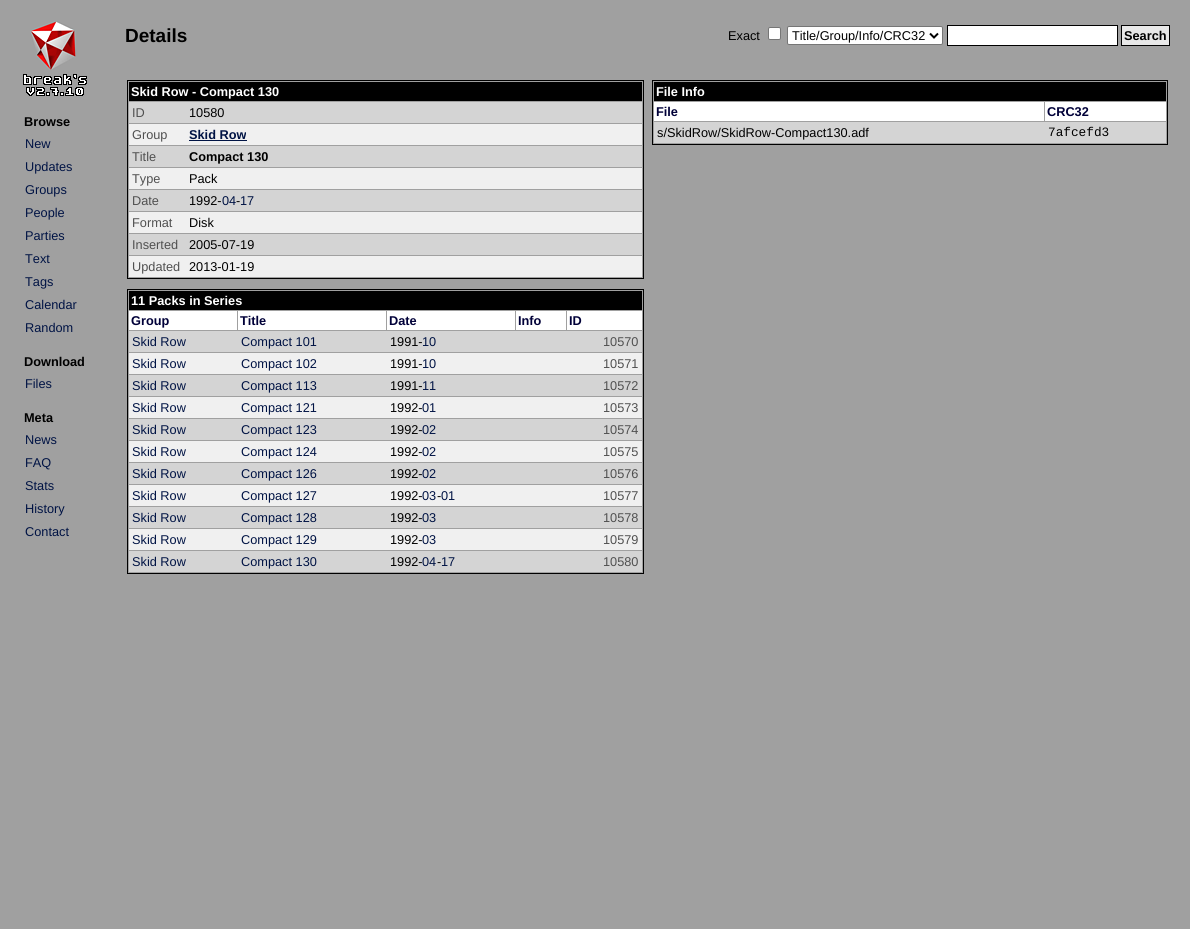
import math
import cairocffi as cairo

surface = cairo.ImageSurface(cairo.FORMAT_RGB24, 1190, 929)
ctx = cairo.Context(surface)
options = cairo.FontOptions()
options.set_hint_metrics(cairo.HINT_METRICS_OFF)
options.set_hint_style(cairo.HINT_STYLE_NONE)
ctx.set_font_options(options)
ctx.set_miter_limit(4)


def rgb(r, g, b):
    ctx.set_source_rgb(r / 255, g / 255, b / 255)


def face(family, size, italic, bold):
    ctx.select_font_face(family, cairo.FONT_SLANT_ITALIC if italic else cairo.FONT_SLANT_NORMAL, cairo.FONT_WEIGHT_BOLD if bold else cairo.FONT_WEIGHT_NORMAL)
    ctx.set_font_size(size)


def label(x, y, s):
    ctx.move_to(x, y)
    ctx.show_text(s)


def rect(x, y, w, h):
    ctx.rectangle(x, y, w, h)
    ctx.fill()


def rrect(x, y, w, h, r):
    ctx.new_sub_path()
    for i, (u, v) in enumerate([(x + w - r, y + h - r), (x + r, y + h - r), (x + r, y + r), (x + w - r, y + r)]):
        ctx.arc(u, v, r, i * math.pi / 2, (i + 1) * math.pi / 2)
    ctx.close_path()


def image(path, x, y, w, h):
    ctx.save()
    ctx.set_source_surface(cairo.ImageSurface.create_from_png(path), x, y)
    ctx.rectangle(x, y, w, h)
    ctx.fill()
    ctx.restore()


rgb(160, 160, 160)
ctx.paint()
image('image0.png', 23, 21, 64, 75)
face('Liberation Sans', 12.75, 0, 1)
rgb(0, 0, 0)
label(24, 126, 'Browse')
face('Liberation Sans', 12.75, 0, 0)
rgb(0, 19, 68)
label(25, 148, 'New')
label(25, 171, 'Updates')
label(25, 194, 'Groups')
label(25, 217, 'People')
label(25, 240, 'Parties')
label(25, 263, 'Text')
label(25, 286, 'Tags')
label(25, 309, 'Calendar')
label(25, 332, 'Random')
face('Liberation Sans', 12.75, 0, 1)
rgb(0, 0, 0)
label(24, 366, 'Download')
face('Liberation Sans', 12.75, 0, 0)
rgb(0, 19, 68)
label(25, 388, 'Files')
face('Liberation Sans', 12.75, 0, 1)
rgb(0, 0, 0)
label(24, 422, 'Meta')
face('Liberation Sans', 12.75, 0, 0)
rgb(0, 19, 68)
label(25, 444, 'News')
label(25, 467, 'FAQ')
label(25, 490, 'Stats')
label(25, 513, 'History')
label(25, 536, 'Contact')
face('Liberation Sans', 19, 0, 1)
rgb(0, 0, 0)
label(125, 42, 'Details')
face('Liberation Sans', 12.75, 0, 0)
label(728, 40, 'Exact')
rgb(255, 255, 255)
rrect(768.5, 27.5, 12, 12, 1.5)
ctx.fill_preserve()
rgb(118, 118, 118)
ctx.set_line_width(1)
ctx.stroke()
rgb(255, 255, 255)
rrect(787.5, 26.5, 155, 18, 1.5)
ctx.fill_preserve()
rgb(118, 118, 118)
ctx.stroke()
ctx.new_path()
ctx.move_to(930, 33.5)
ctx.line_to(934, 37.5)
ctx.line_to(938, 33.5)
rgb(0, 0, 0)
ctx.set_line_width(2)
ctx.stroke()
label(792, 40, 'Title/Group/Info/CRC32')
rgb(255, 255, 255)
ctx.rectangle(947.5, 25.5, 170, 20)
ctx.fill_preserve()
rgb(0, 0, 0)
ctx.set_line_width(1)
ctx.stroke()
rgb(232, 232, 232)
ctx.rectangle(1121.5, 25.5, 48, 20)
ctx.fill_preserve()
rgb(0, 0, 0)
ctx.stroke()
face('Liberation Sans', 12.75, 0, 1)
label(1124, 40, 'Search')
ctx.rectangle(127.5, 80.5, 516, 198)
ctx.stroke()
rect(129, 82, 513, 19)
rgb(255, 255, 255)
label(131, 96, 'Skid Row - Compact 130')
rgb(212, 212, 212)
rect(129, 102, 513, 21)
face('Liberation Sans', 12.75, 0, 0)
rgb(80, 80, 80)
label(132, 117, 'ID')
rgb(0, 0, 0)
label(189, 117, '10580')
rgb(240, 240, 240)
rect(129, 124, 513, 21)
rgb(80, 80, 80)
label(132, 139, 'Group')
face('Liberation Sans', 12.75, 0, 1)
rgb(0, 19, 68)
label(189, 139, 'Skid Row')
rect(189, 140, 58, 1)
rgb(212, 212, 212)
rect(129, 146, 513, 21)
face('Liberation Sans', 12.75, 0, 0)
rgb(80, 80, 80)
label(132, 161, 'Title')
face('Liberation Sans', 12.75, 0, 1)
rgb(0, 0, 0)
label(189, 161, 'Compact 130')
rgb(240, 240, 240)
rect(129, 168, 513, 21)
face('Liberation Sans', 12.75, 0, 0)
rgb(80, 80, 80)
label(132, 183, 'Type')
rgb(0, 0, 0)
label(189, 183, 'Pack')
rgb(212, 212, 212)
rect(129, 190, 513, 21)
rgb(80, 80, 80)
label(132, 205, 'Date')
rgb(0, 0, 0)
label(189, 205, '1992-')
rgb(0, 19, 68)
label(222, 205, '04')
rgb(0, 0, 0)
label(236, 205, '-')
rgb(0, 19, 68)
label(240, 205, '17')
rgb(240, 240, 240)
rect(129, 212, 513, 21)
rgb(80, 80, 80)
label(132, 227, 'Format')
rgb(0, 0, 0)
label(189, 227, 'Disk')
rgb(212, 212, 212)
rect(129, 234, 513, 21)
rgb(80, 80, 80)
label(132, 249, 'Inserted')
rgb(0, 0, 0)
label(189, 249, '2005-07-19')
rgb(240, 240, 240)
rect(129, 256, 513, 21)
rgb(80, 80, 80)
label(132, 271, 'Updated')
rgb(0, 0, 0)
label(189, 271, '2013-01-19')
ctx.rectangle(127.5, 289.5, 516, 284)
ctx.stroke()
rect(129, 291, 513, 19)
face('Liberation Sans', 12.75, 0, 1)
rgb(255, 255, 255)
label(131, 305, '11 Packs in Series')
rect(129, 311, 108, 19)
rgb(0, 0, 56)
label(131, 325, 'Group')
rgb(255, 255, 255)
rect(238, 311, 148, 19)
rgb(0, 0, 56)
label(240, 325, 'Title')
rgb(255, 255, 255)
rect(387, 311, 128, 19)
rgb(0, 0, 56)
label(389, 325, 'Date')
rgb(255, 255, 255)
rect(516, 311, 50, 19)
rgb(0, 0, 56)
label(518, 325, 'Info')
rgb(255, 255, 255)
rect(567, 311, 75, 19)
rgb(0, 0, 56)
label(569, 325, 'ID')
rgb(212, 212, 212)
rect(129, 331, 513, 21)
face('Liberation Sans', 12.75, 0, 0)
rgb(0, 19, 68)
label(132, 346, 'Skid Row')
label(241, 346, 'Compact 101')
rgb(0, 0, 0)
label(390, 346, '1991-')
rgb(0, 19, 68)
label(422, 346, '10')
rgb(80, 80, 80)
label(603, 346, '10570')
rgb(240, 240, 240)
rect(129, 353, 513, 21)
rgb(0, 19, 68)
label(132, 368, 'Skid Row')
label(241, 368, 'Compact 102')
rgb(0, 0, 0)
label(390, 368, '1991-')
rgb(0, 19, 68)
label(422, 368, '10')
rgb(80, 80, 80)
label(603, 368, '10571')
rgb(212, 212, 212)
rect(129, 375, 513, 21)
rgb(0, 19, 68)
label(132, 390, 'Skid Row')
label(241, 390, 'Compact 113')
rgb(0, 0, 0)
label(390, 390, '1991-')
rgb(0, 19, 68)
label(422, 390, '11')
rgb(80, 80, 80)
label(603, 390, '10572')
rgb(240, 240, 240)
rect(129, 397, 513, 21)
rgb(0, 19, 68)
label(132, 412, 'Skid Row')
label(241, 412, 'Compact 121')
rgb(0, 0, 0)
label(390, 412, '1992-')
rgb(0, 19, 68)
label(422, 412, '01')
rgb(80, 80, 80)
label(603, 412, '10573')
rgb(212, 212, 212)
rect(129, 419, 513, 21)
rgb(0, 19, 68)
label(132, 434, 'Skid Row')
label(241, 434, 'Compact 123')
rgb(0, 0, 0)
label(390, 434, '1992-')
rgb(0, 19, 68)
label(422, 434, '02')
rgb(80, 80, 80)
label(603, 434, '10574')
rgb(240, 240, 240)
rect(129, 441, 513, 21)
rgb(0, 19, 68)
label(132, 456, 'Skid Row')
label(241, 456, 'Compact 124')
rgb(0, 0, 0)
label(390, 456, '1992-')
rgb(0, 19, 68)
label(422, 456, '02')
rgb(80, 80, 80)
label(603, 456, '10575')
rgb(212, 212, 212)
rect(129, 463, 513, 21)
rgb(0, 19, 68)
label(132, 478, 'Skid Row')
label(241, 478, 'Compact 126')
rgb(0, 0, 0)
label(390, 478, '1992-')
rgb(0, 19, 68)
label(422, 478, '02')
rgb(80, 80, 80)
label(603, 478, '10576')
rgb(240, 240, 240)
rect(129, 485, 513, 21)
rgb(0, 19, 68)
label(132, 500, 'Skid Row')
label(241, 500, 'Compact 127')
rgb(0, 0, 0)
label(390, 500, '1992-')
rgb(0, 19, 68)
label(422, 500, '03')
rgb(0, 0, 0)
label(437, 500, '-')
rgb(0, 19, 68)
label(441, 500, '01')
rgb(80, 80, 80)
label(603, 500, '10577')
rgb(212, 212, 212)
rect(129, 507, 513, 21)
rgb(0, 19, 68)
label(132, 522, 'Skid Row')
label(241, 522, 'Compact 128')
rgb(0, 0, 0)
label(390, 522, '1992-')
rgb(0, 19, 68)
label(422, 522, '03')
rgb(80, 80, 80)
label(603, 522, '10578')
rgb(240, 240, 240)
rect(129, 529, 513, 21)
rgb(0, 19, 68)
label(132, 544, 'Skid Row')
label(241, 544, 'Compact 129')
rgb(0, 0, 0)
label(390, 544, '1992-')
rgb(0, 19, 68)
label(422, 544, '03')
rgb(80, 80, 80)
label(603, 544, '10579')
rgb(212, 212, 212)
rect(129, 551, 513, 21)
rgb(0, 19, 68)
label(132, 566, 'Skid Row')
label(241, 566, 'Compact 130')
rgb(0, 0, 0)
label(390, 566, '1992-')
rgb(0, 19, 68)
label(422, 566, '04')
rgb(0, 0, 0)
label(437, 566, '-')
rgb(0, 19, 68)
label(441, 566, '17')
rgb(80, 80, 80)
label(603, 566, '10580')
ctx.rectangle(652.5, 80.5, 515, 64)
rgb(0, 0, 0)
ctx.stroke()
rect(654, 82, 512, 19)
face('Liberation Sans', 12.75, 0, 1)
rgb(255, 255, 255)
label(656, 96, 'File Info')
rect(654, 102, 390, 19)
rgb(0, 0, 56)
label(656, 116, 'File')
rgb(255, 255, 255)
rect(1045, 102, 121, 19)
rgb(0, 0, 56)
label(1047, 116, 'CRC32')
rgb(212, 212, 212)
rect(654, 122, 512, 21)
face('Liberation Sans', 12.75, 0, 0)
rgb(0, 0, 0)
label(657, 137, 's/SkidRow/SkidRow-Compact130.adf')
face('Liberation Mono', 12.75, 0, 0)
label(1048, 136, '7afcefd3')
surface.write_to_png('render.png')
